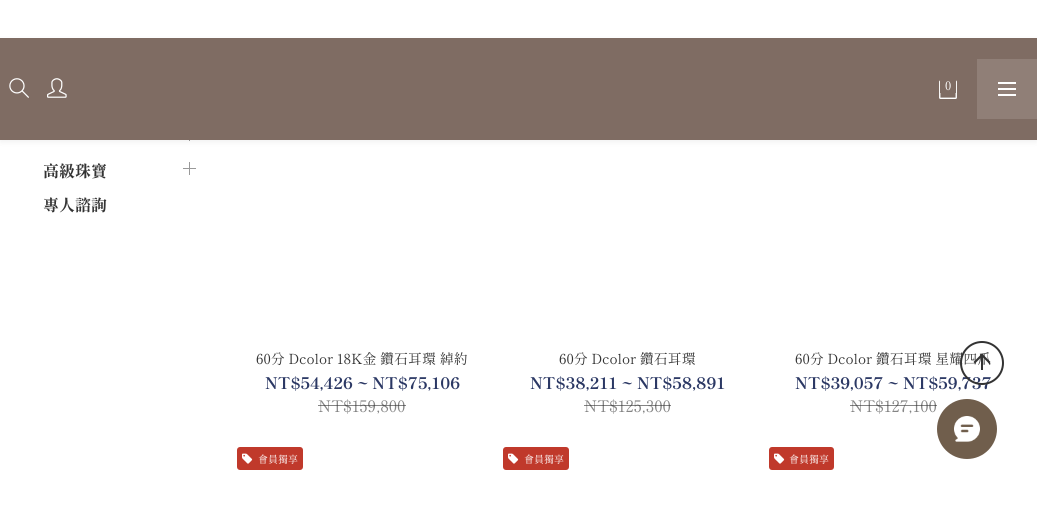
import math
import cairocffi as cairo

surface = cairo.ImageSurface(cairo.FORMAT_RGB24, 1037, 515)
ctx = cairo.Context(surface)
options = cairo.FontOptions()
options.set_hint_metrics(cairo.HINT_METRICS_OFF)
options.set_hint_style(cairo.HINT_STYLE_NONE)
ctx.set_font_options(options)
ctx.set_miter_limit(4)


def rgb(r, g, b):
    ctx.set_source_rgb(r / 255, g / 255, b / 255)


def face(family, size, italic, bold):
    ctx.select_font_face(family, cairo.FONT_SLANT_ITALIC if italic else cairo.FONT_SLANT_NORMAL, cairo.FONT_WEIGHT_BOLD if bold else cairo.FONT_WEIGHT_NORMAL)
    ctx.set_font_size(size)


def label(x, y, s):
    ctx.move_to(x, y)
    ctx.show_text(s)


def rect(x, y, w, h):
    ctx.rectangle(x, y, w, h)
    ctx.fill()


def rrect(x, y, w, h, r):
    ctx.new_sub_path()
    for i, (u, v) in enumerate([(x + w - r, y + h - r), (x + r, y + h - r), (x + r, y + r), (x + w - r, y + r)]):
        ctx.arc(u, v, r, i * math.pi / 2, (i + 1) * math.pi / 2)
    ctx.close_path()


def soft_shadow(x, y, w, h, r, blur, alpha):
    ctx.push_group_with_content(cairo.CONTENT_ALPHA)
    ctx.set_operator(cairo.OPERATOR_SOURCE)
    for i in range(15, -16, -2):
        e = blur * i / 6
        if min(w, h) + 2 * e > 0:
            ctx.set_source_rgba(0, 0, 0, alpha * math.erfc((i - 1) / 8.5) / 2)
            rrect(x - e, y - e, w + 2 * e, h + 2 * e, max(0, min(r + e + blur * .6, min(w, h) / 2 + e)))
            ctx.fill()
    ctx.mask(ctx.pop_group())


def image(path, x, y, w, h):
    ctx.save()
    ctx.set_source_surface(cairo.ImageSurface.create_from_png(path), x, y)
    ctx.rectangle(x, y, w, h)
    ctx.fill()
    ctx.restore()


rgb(255, 255, 255)
ctx.paint()
rgb(153, 153, 153)
rect(189, 140, 1, 1)
rgb(0, 0, 0)
soft_shadow(0, 40, 1037, 102, 0, 3, 0.06)
rgb(127, 108, 99)
rect(0, 38, 1037, 102)
image('image0.png', 9, 78, 20, 20)
image('image1.png', 47, 78, 20, 20)
image('image2.png', 939, 80, 18, 19)
rect(940, 80, 16, 13)
face('Shippori Mincho', 12, 0, 0)
rgb(255, 255, 255)
label(945, 90, '0')
rgb(144, 127, 119)
rect(977, 59, 60, 60)
rgb(255, 255, 255)
rect(998, 88, 18, 2)
rect(998, 82, 18, 2)
rect(998, 94, 18, 2)
face('Shippori Mincho', 16, 0, 1)
rgb(51, 51, 51)
label(43, 177, '高級珠寶')
rgb(153, 153, 153)
rect(183, 168, 13, 1)
rect(189, 162, 1, 13)
rgb(51, 51, 51)
label(43, 211, '專人諮詢')
face('Shippori Mincho', 14, 0, 0)
label(256, 364, '60分 Dcolor 18K金 鑽石耳環 綽約')
face('Shippori Mincho', 16, 0, 1)
rgb(43, 56, 100)
label(265, 389, 'NT$54,426 ~ NT$75,106')
face('Shippori Mincho', 16, 0, 0)
rgb(133, 133, 133)
label(318, 412, 'NT$159,800')
ctx.set_source_rgba(0.2, 0.2, 0.2, 0.6)
rect(318, 405, 88, 1)
face('Shippori Mincho', 14, 0, 0)
rgb(51, 51, 51)
label(559, 364, '60分 Dcolor 鑽石耳環')
face('Shippori Mincho', 16, 0, 1)
rgb(43, 56, 100)
label(530, 389, 'NT$38,211 ~ NT$58,891')
face('Shippori Mincho', 16, 0, 0)
rgb(133, 133, 133)
label(584, 412, 'NT$125,300')
ctx.set_source_rgba(0.2, 0.2, 0.2, 0.6)
rect(584, 405, 87, 1)
face('Shippori Mincho', 14, 0, 0)
rgb(51, 51, 51)
label(795, 364, '60分 Dcolor 鑽石耳環 星耀四爪')
face('Shippori Mincho', 16, 0, 1)
rgb(43, 56, 100)
label(795, 389, 'NT$39,057 ~ NT$59,737')
face('Shippori Mincho', 16, 0, 0)
rgb(133, 133, 133)
label(850, 412, 'NT$127,100')
ctx.set_source_rgba(0.2, 0.2, 0.2, 0.6)
rect(850, 405, 87, 1)
rgb(192, 57, 43)
rrect(237, 447, 66, 23, 3)
ctx.fill()
image('image3.png', 242, 453, 11, 11)
face('Shippori Mincho', 10, 0, 0)
rgb(255, 255, 255)
label(258, 463, '會員獨享')
rgb(192, 57, 43)
rrect(503, 447, 66, 23, 3)
ctx.fill()
image('image3.png', 508, 453, 11, 11)
rgb(255, 255, 255)
label(524, 463, '會員獨享')
rgb(192, 57, 43)
rrect(769, 447, 65, 23, 3)
ctx.fill()
image('image3.png', 774, 453, 11, 11)
rgb(255, 255, 255)
label(789, 463, '會員獨享')
ctx.new_path()
ctx.arc(982, 363, 21, 0, 2 * math.pi)
rgb(51, 51, 51)
ctx.stroke()
ctx.new_path()
ctx.move_to(982, 353.5)
ctx.line_to(990.5, 362)
ctx.line_to(989, 363.5)
ctx.line_to(980.5, 355)
ctx.close_path()
ctx.fill()
ctx.new_path()
ctx.move_to(982, 353.5)
ctx.line_to(983.5, 355)
ctx.line_to(975, 363.5)
ctx.line_to(973.5, 362)
ctx.close_path()
ctx.fill()
rect(981, 356, 2, 14)
rgb(112, 94, 76)
ctx.arc(967, 429, 30, 0, 2 * math.pi)
ctx.fill()
image('image4.png', 954, 416, 26, 26)
surface.write_to_png('render.png')
